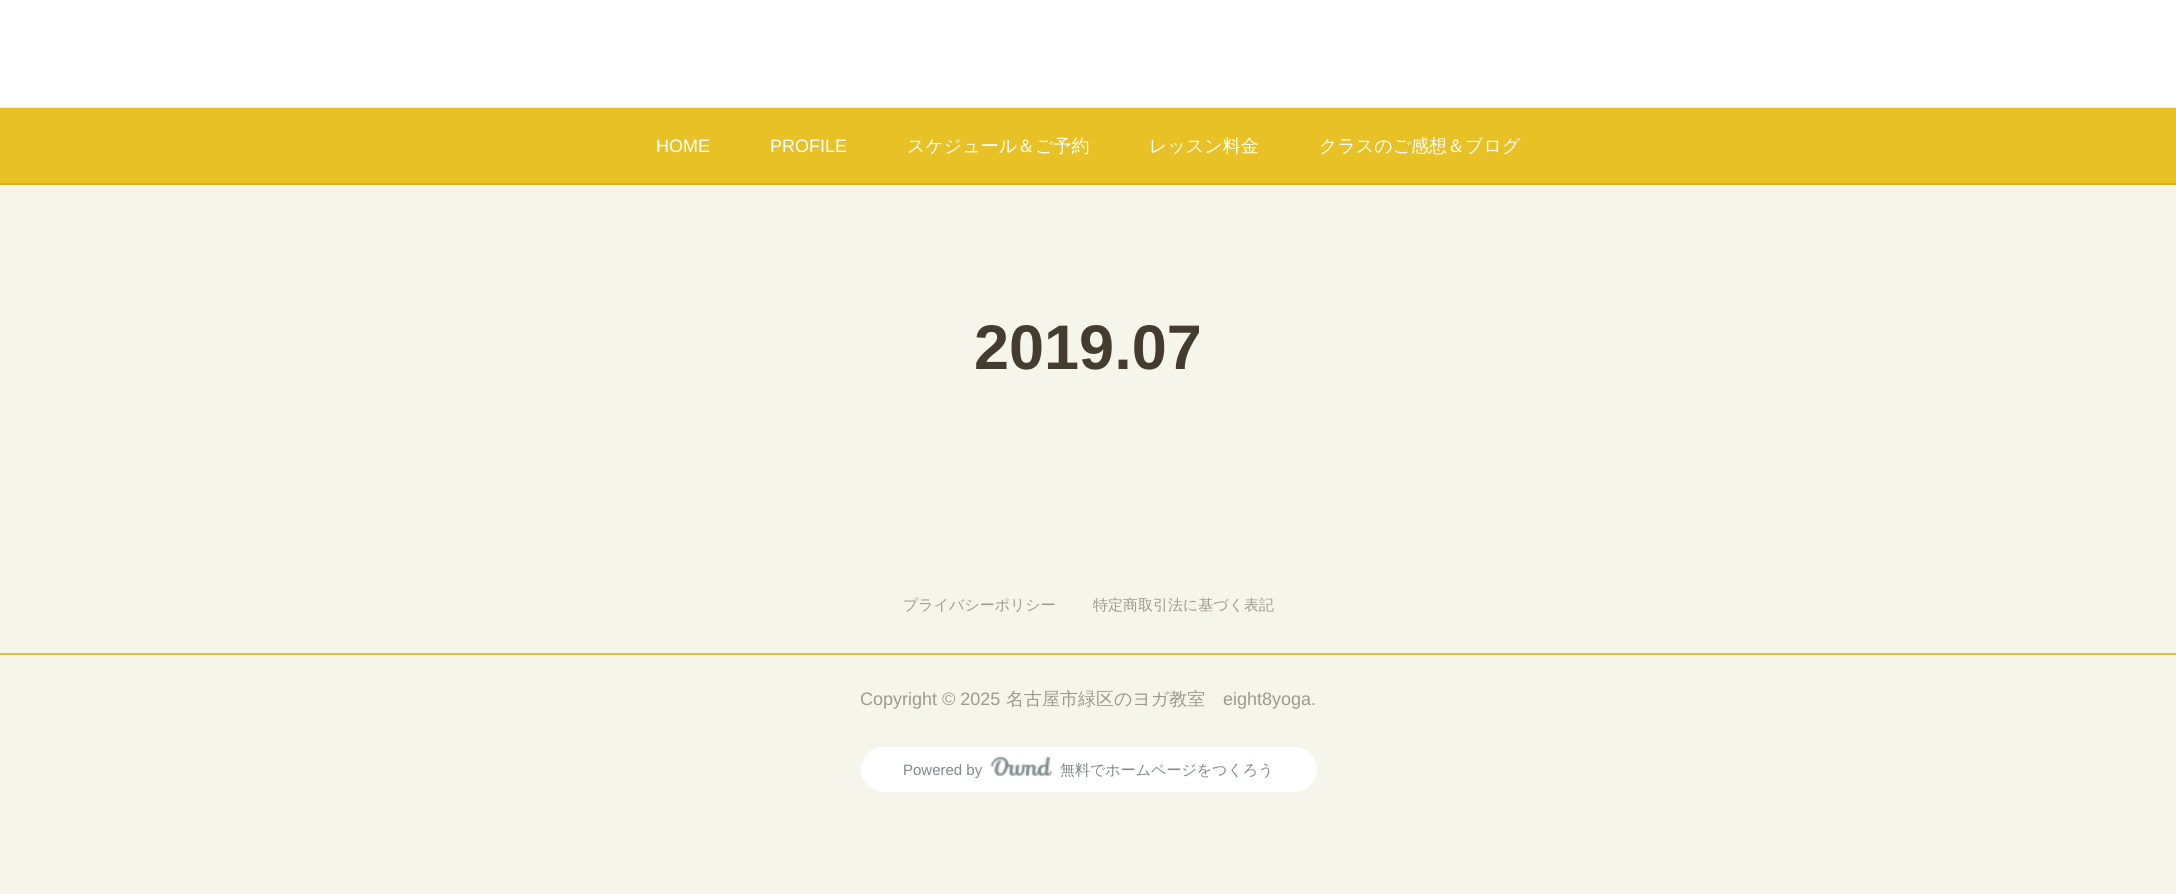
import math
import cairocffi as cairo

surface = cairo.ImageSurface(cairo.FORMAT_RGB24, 2176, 894)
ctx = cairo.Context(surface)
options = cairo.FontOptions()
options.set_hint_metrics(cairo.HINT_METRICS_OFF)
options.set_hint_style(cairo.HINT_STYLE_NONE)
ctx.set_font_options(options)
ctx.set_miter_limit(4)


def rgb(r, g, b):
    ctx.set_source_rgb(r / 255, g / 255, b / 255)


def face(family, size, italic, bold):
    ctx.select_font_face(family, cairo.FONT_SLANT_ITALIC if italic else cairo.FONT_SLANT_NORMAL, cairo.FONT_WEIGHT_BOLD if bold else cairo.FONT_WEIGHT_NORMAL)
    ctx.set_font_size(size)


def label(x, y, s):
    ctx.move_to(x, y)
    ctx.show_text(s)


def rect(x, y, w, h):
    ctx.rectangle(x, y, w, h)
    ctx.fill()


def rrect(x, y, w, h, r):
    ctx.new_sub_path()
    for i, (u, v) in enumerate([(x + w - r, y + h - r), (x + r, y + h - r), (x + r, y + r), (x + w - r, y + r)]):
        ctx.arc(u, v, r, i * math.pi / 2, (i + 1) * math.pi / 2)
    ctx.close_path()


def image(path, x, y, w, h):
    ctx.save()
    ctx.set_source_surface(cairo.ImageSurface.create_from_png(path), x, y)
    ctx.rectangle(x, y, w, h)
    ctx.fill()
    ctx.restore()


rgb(246, 245, 236)
ctx.paint()
rgb(255, 255, 255)
rect(0, 0, 2176, 107)
rgb(238, 238, 238)
rect(0, 107, 2176, 1)
rgb(232, 193, 38)
rect(0, 108, 2176, 75)
rgb(209, 174, 34)
rect(0, 183, 2176, 2)
face('Liberation Sans', 18, 0, 0)
rgb(255, 255, 255)
label(656, 152, 'HOME')
label(770, 152, 'PROFILE')
face('WenQuanYi Zen Hei Medium', 18, 0, 0)
label(907, 152, 'スケジュール＆ご予約')
label(1149, 152, 'レッスン料金')
label(1319, 152, 'クラスのご感想＆ブログ')
face('Liberation Sans', 63, 0, 1)
rgb(68, 60, 47)
label(974, 369, '2019.07')
face('WenQuanYi Zen Hei Medium', 15, 0, 0)
rgb(157, 153, 142)
label(903, 610, 'プライバシーポリシー')
label(1093, 610, '特定商取引法に基づく表記')
rgb(232, 193, 38)
rect(0, 653, 2176, 2)
face('Liberation Sans', 18, 0, 0)
rgb(157, 153, 142)
label(860, 705, 'Copyright © 2025')
face('WenQuanYi Zen Hei Medium', 18, 0, 0)
label(1006, 705, '名古屋市緑区のヨガ教室')
face('Liberation Sans', 18, 0, 0)
label(1223, 705, 'eight8yoga.')
rgb(255, 255, 255)
rrect(861, 747, 456, 45, 22.5)
ctx.fill()
face('Liberation Sans', 15, 0, 0)
rgb(125, 139, 136)
label(903, 775, 'Powered by')
image('image0.png', 990, 756, 63, 21)
face('WenQuanYi Zen Hei Medium', 15, 0, 0)
label(1060, 775, '無料でホームページをつくろう')
surface.write_to_png('render.png')
